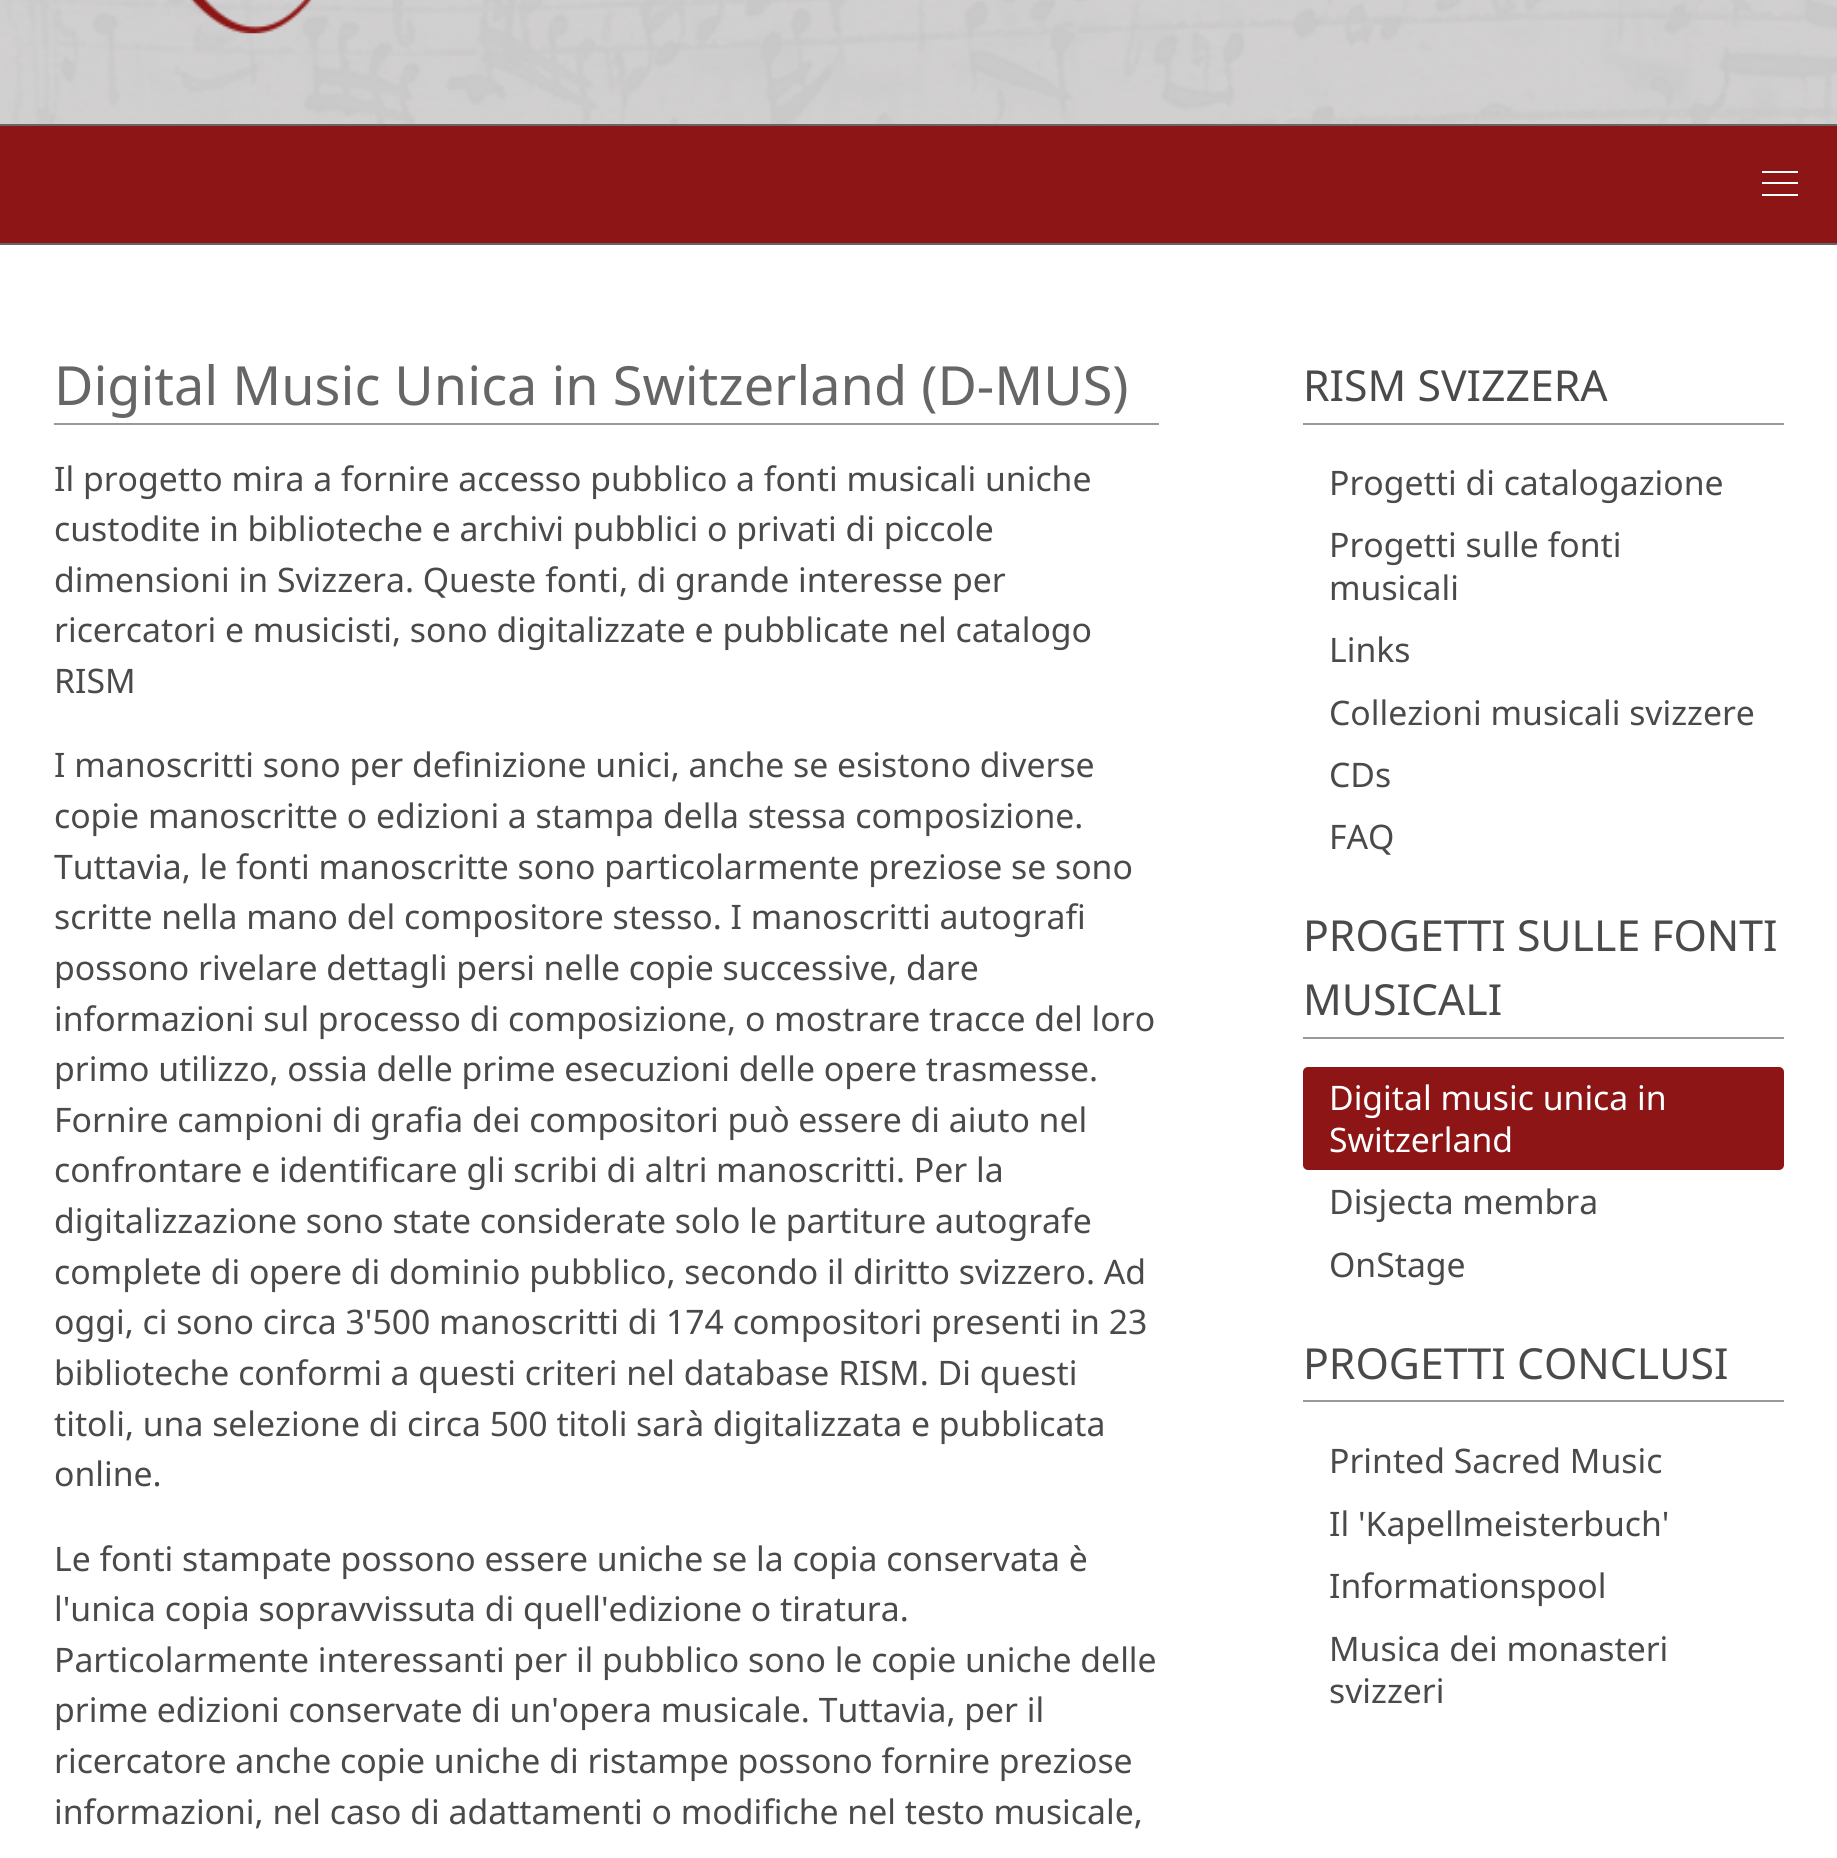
import math
import cairocffi as cairo

surface = cairo.ImageSurface(cairo.FORMAT_RGB24, 1837, 1858)
ctx = cairo.Context(surface)
options = cairo.FontOptions()
options.set_hint_metrics(cairo.HINT_METRICS_OFF)
options.set_hint_style(cairo.HINT_STYLE_NONE)
ctx.set_font_options(options)
ctx.set_miter_limit(4)


def rgb(r, g, b):
    ctx.set_source_rgb(r / 255, g / 255, b / 255)


def face(family, size, italic, bold):
    ctx.select_font_face(family, cairo.FONT_SLANT_ITALIC if italic else cairo.FONT_SLANT_NORMAL, cairo.FONT_WEIGHT_BOLD if bold else cairo.FONT_WEIGHT_NORMAL)
    ctx.set_font_size(size)


def label(x, y, s):
    ctx.move_to(x, y)
    ctx.show_text(s)


def rect(x, y, w, h):
    ctx.rectangle(x, y, w, h)
    ctx.fill()


def rrect(x, y, w, h, r):
    ctx.new_sub_path()
    for i, (u, v) in enumerate([(x + w - r, y + h - r), (x + r, y + h - r), (x + r, y + r), (x + w - r, y + r)]):
        ctx.arc(u, v, r, i * math.pi / 2, (i + 1) * math.pi / 2)
    ctx.close_path()


def image(path, x, y, w, h):
    ctx.save()
    ctx.set_source_surface(cairo.ImageSurface.create_from_png(path), x, y)
    ctx.rectangle(x, y, w, h)
    ctx.fill()
    ctx.restore()


rgb(255, 255, 255)
ctx.paint()
image('image0.png', 0, 0, 1837, 124)
rgb(102, 102, 102)
rect(0, 124, 1837, 2)
image('image1.png', 190, 0, 122, 34)
rgb(142, 21, 21)
rect(0, 126, 1837, 117)
rgb(102, 102, 102)
rect(0, 243, 1837, 2)
rgb(255, 255, 255)
rect(1762, 171, 36, 2)
rect(1762, 182, 36, 2)
rect(1762, 194, 36, 2)
rgb(153, 153, 153)
rect(54, 423, 1105, 2)
face('Noto Sans', 54, 0, 0)
rgb(102, 102, 102)
label(54, 405, 'Digital Music Unica in Switzerland (D-MUS)')
face('Noto Sans', 33.75, 0, 0)
rgb(74, 74, 74)
label(54, 491, 'Il progetto mira a fornire accesso pubblico a fonti musicali uniche')
label(54, 541, 'custodite in biblioteche e archivi pubblici o privati di piccole')
label(54, 592, 'dimensioni in Svizzera. Queste fonti, di grande interesse per')
label(54, 642, 'ricercatori e musicisti, sono digitalizzate e pubblicate nel catalogo')
label(54, 693, 'RISM')
label(54, 777, 'I manoscritti sono per definizione unici, anche se esistono diverse')
label(54, 828, 'copie manoscritte o edizioni a stampa della stessa composizione.')
label(54, 879, 'Tuttavia, le fonti manoscritte sono particolarmente preziose se sono')
label(54, 929, 'scritte nella mano del compositore stesso. I manoscritti autografi')
label(54, 980, 'possono rivelare dettagli persi nelle copie successive, dare')
label(54, 1031, 'informazioni sul processo di composizione, o mostrare tracce del loro')
label(54, 1081, 'primo utilizzo, ossia delle prime esecuzioni delle opere trasmesse.')
label(54, 1132, 'Fornire campioni di grafia dei compositori può essere di aiuto nel')
label(54, 1182, 'confrontare e identificare gli scribi di altri manoscritti. Per la')
label(54, 1233, 'digitalizzazione sono state considerate solo le partiture autografe')
label(54, 1284, 'complete di opere di dominio pubblico, secondo il diritto svizzero. Ad')
label(54, 1334, 'oggi, ci sono circa 3\'500 manoscritti di 174 compositori presenti in 23')
label(54, 1385, 'biblioteche conformi a questi criteri nel database RISM. Di questi')
label(54, 1436, 'titoli, una selezione di circa 500 titoli sarà digitalizzata e pubblicata')
label(54, 1486, 'online.')
label(54, 1571, 'Le fonti stampate possono essere uniche se la copia conservata è')
label(54, 1621, 'l\'unica copia sopravvissuta di quell\'edizione o tiratura.')
label(54, 1672, 'Particolarmente interessanti per il pubblico sono le copie uniche delle')
label(54, 1722, 'prime edizioni conservate di un\'opera musicale. Tuttavia, per il')
label(54, 1773, 'ricercatore anche copie uniche di ristampe possono fornire preziose')
label(54, 1824, 'informazioni, nel caso di adattamenti o modifiche nel testo musicale,')
rgb(153, 153, 153)
rect(1303, 423, 481, 2)
face('Noto Sans', 42.75, 0, 0)
rgb(74, 74, 74)
label(1303, 401, 'RISM SVIZZERA')
face('Noto Sans', 33.75, 0, 0)
label(1329, 495, 'Progetti di catalogazione')
label(1329, 557, 'Progetti sulle fonti')
label(1329, 600, 'musicali')
label(1329, 662, 'Links')
label(1329, 725, 'Collezioni musicali svizzere')
label(1329, 787, 'CDs')
label(1329, 849, 'FAQ')
rgb(153, 153, 153)
rect(1303, 1037, 481, 2)
face('Noto Sans', 42.75, 0, 0)
rgb(74, 74, 74)
label(1303, 951, 'PROGETTI SULLE FONTI')
label(1303, 1015, 'MUSICALI')
rgb(142, 21, 21)
rrect(1303, 1067, 481, 103, 5)
ctx.fill()
face('Noto Sans', 33.75, 0, 0)
rgb(255, 255, 255)
label(1329, 1110, 'Digital music unica in')
label(1329, 1152, 'Switzerland')
rgb(74, 74, 74)
label(1329, 1214, 'Disjecta membra')
label(1329, 1277, 'OnStage')
rgb(153, 153, 153)
rect(1303, 1400, 481, 2)
face('Noto Sans', 42.75, 0, 0)
rgb(74, 74, 74)
label(1303, 1379, 'PROGETTI CONCLUSI')
face('Noto Sans', 33.75, 0, 0)
label(1329, 1473, 'Printed Sacred Music')
label(1329, 1536, 'Il \'Kapellmeisterbuch\'')
label(1329, 1598, 'Informationspool')
label(1329, 1661, 'Musica dei monasteri')
label(1329, 1703, 'svizzeri')
surface.write_to_png('render.png')
